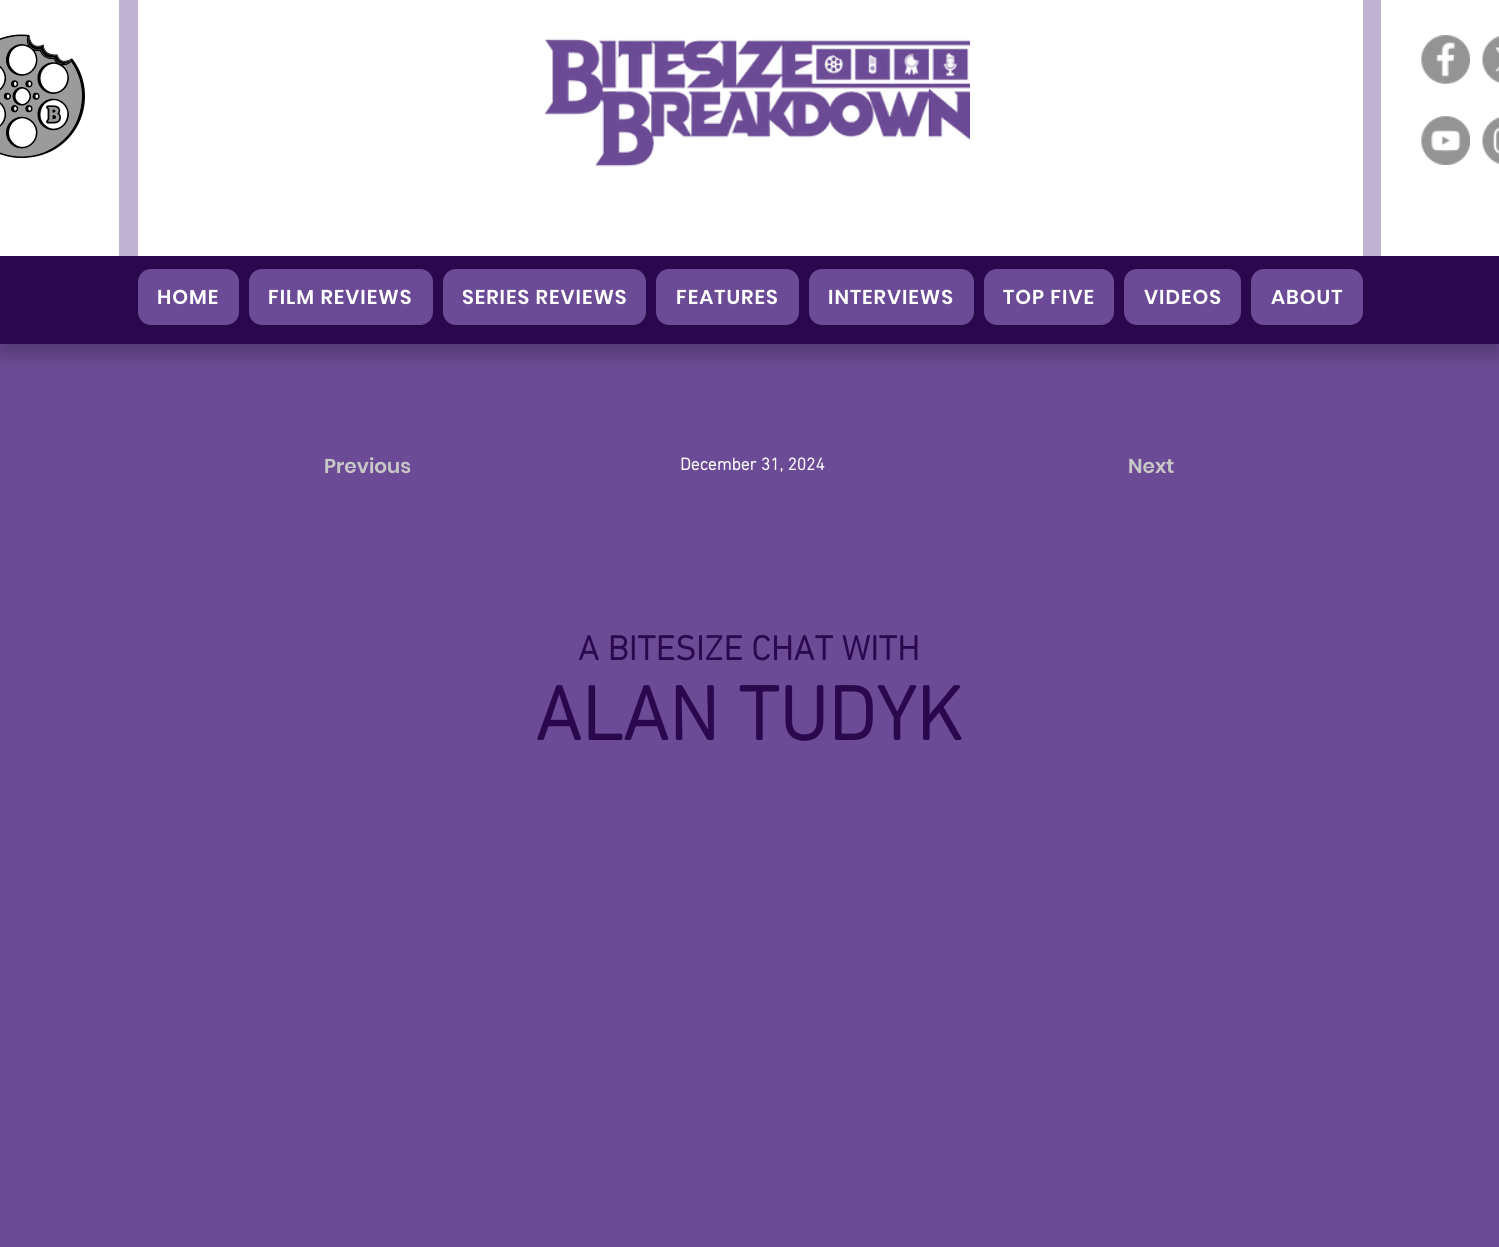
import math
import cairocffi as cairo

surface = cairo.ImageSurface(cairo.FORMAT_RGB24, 1499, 1247)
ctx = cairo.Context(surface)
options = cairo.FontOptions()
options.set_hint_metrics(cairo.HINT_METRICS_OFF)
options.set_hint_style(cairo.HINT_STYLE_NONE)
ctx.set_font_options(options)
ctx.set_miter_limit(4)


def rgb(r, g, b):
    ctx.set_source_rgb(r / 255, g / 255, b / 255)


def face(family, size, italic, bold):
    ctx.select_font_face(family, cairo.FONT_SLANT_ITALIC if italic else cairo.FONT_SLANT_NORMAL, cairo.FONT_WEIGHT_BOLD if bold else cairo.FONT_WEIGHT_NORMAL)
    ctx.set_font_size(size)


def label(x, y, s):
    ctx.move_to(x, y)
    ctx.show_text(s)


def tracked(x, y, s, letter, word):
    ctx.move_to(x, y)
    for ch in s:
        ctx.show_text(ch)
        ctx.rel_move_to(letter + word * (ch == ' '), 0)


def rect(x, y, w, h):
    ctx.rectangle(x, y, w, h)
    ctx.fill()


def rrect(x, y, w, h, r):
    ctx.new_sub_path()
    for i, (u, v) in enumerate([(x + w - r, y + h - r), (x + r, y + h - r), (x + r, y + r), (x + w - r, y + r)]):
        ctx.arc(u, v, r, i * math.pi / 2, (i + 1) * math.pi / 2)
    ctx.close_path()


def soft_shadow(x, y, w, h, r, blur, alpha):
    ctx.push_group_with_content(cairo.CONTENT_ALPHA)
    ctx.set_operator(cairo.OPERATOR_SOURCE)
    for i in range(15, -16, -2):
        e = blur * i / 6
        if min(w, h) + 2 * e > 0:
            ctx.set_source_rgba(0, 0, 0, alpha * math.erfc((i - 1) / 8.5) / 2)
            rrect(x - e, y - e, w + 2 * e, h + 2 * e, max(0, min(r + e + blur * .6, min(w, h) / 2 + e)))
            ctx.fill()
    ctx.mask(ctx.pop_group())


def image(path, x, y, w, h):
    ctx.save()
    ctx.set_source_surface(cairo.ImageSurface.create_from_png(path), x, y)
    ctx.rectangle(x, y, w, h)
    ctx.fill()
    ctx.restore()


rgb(108, 75, 150)
ctx.paint()
rgb(0, 0, 0)
soft_shadow(0, 11, 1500, 344, 0, 9.5, 0.23)
rgb(255, 255, 255)
rect(0, 0, 1499, 256)
image('image0.png', 0, 34, 85, 124)
rgb(192, 178, 210)
rect(119, 0, 19, 256)
image('image1.png', 545, 38, 425, 129)
rect(1363, 0, 18, 256)
image('image2.png', 1421, 35, 49, 49)
image('image3.png', 1482, 36, 17, 47)
image('image4.png', 1421, 116, 49, 49)
image('image5.png', 1482, 117, 17, 47)
rgb(43, 7, 77)
rect(0, 256, 1499, 88)
rgb(108, 75, 150)
rrect(138, 269, 101, 56, 13)
ctx.fill()
face('Poppins SemiBold', 20, 0, 0)
rgb(255, 255, 255)
tracked(157, 304, 'HOME', 1, 0)
rgb(108, 75, 150)
rrect(249, 269, 184, 56, 13)
ctx.fill()
rgb(255, 255, 255)
tracked(268, 304, 'FILM REVIEWS', 1, 0)
rgb(108, 75, 150)
rrect(443, 269, 203, 56, 13)
ctx.fill()
rgb(255, 255, 255)
tracked(462, 304, 'SERIES REVIEWS', 1, 0)
rgb(108, 75, 150)
rrect(656, 269, 143, 56, 13)
ctx.fill()
rgb(255, 255, 255)
tracked(676, 304, 'FEATURES', 1, 0)
rgb(108, 75, 150)
rrect(809, 269, 165, 56, 13)
ctx.fill()
rgb(255, 255, 255)
tracked(828, 304, 'INTERVIEWS', 1, 0)
rgb(108, 75, 150)
rrect(984, 269, 130, 56, 13)
ctx.fill()
rgb(255, 255, 255)
tracked(1003, 304, 'TOP FIVE', 1, 0)
rgb(108, 75, 150)
rrect(1124, 269, 117, 56, 13)
ctx.fill()
rgb(255, 255, 255)
tracked(1144, 304, 'VIDEOS', 1, 0)
rgb(108, 75, 150)
rrect(1251, 269, 112, 56, 13)
ctx.fill()
rgb(255, 255, 255)
tracked(1271, 304, 'ABOUT', 1, 0)
rgb(199, 199, 199)
label(324, 473, 'Previous')
face('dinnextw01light', 17.5, 0, 1)
rgb(255, 255, 255)
label(680, 470, 'December 31, 2024')
face('Poppins SemiBold', 20, 0, 0)
rgb(199, 199, 199)
label(1128, 473, 'Next')
face('dinnextw01light', 35, 0, 1)
rgb(43, 7, 77)
label(578, 660, 'A BITESIZE CHAT WITH')
face('dinnextw01light', 77.5, 0, 1)
label(535, 740, 'ALAN TUDYK')
surface.write_to_png('render.png')
